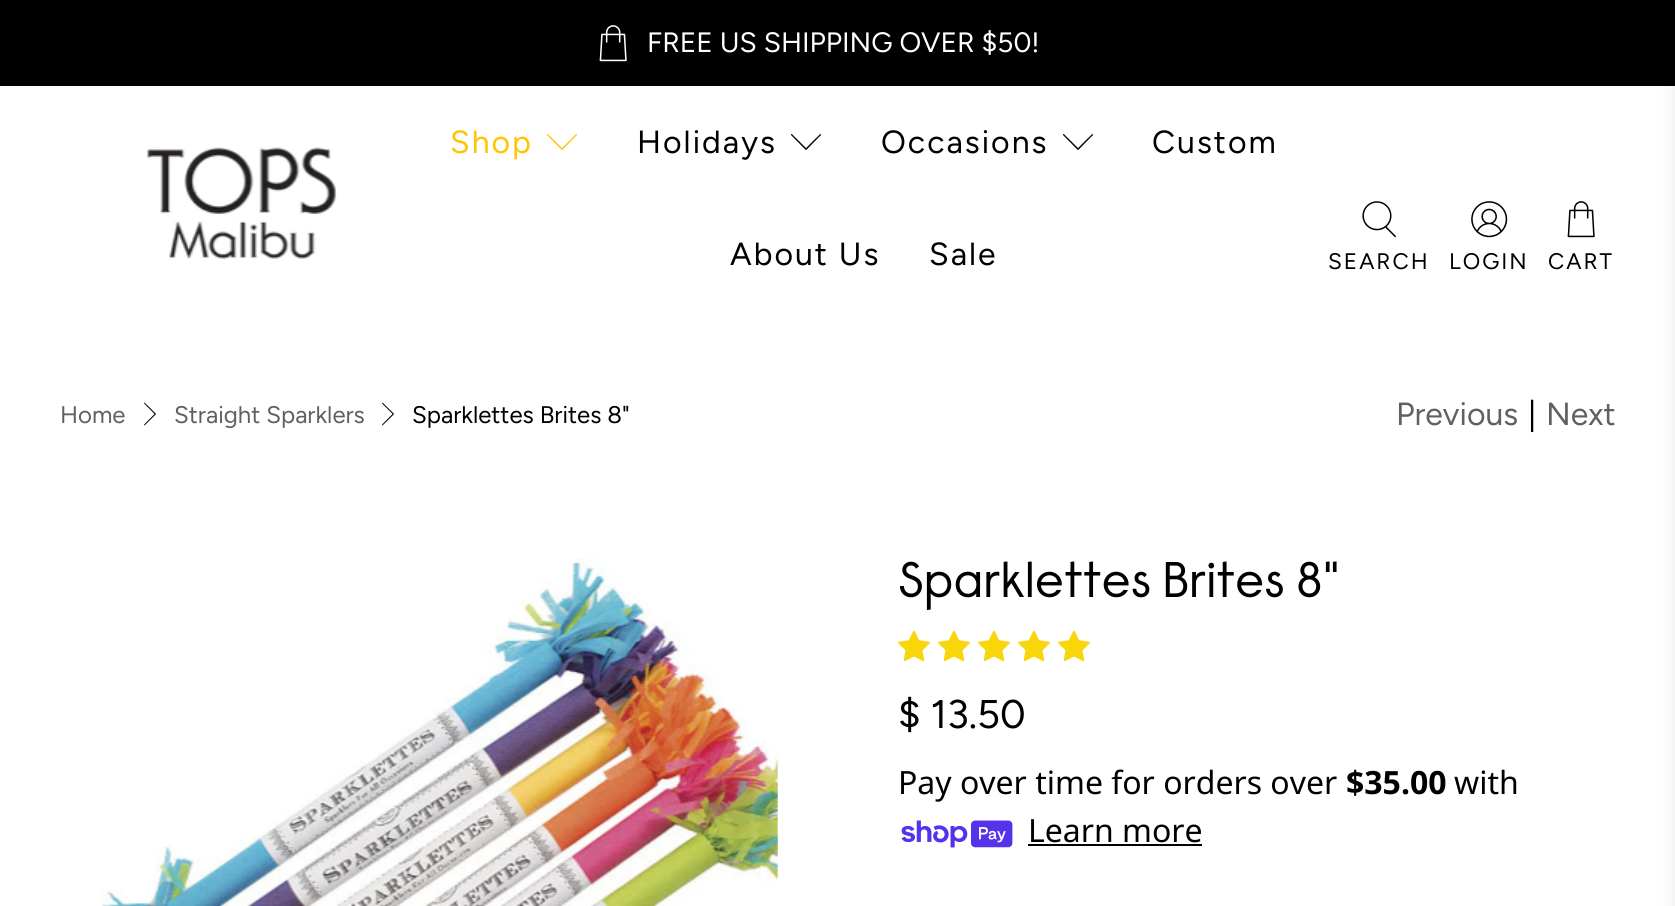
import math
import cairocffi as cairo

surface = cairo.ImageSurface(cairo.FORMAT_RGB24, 1675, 906)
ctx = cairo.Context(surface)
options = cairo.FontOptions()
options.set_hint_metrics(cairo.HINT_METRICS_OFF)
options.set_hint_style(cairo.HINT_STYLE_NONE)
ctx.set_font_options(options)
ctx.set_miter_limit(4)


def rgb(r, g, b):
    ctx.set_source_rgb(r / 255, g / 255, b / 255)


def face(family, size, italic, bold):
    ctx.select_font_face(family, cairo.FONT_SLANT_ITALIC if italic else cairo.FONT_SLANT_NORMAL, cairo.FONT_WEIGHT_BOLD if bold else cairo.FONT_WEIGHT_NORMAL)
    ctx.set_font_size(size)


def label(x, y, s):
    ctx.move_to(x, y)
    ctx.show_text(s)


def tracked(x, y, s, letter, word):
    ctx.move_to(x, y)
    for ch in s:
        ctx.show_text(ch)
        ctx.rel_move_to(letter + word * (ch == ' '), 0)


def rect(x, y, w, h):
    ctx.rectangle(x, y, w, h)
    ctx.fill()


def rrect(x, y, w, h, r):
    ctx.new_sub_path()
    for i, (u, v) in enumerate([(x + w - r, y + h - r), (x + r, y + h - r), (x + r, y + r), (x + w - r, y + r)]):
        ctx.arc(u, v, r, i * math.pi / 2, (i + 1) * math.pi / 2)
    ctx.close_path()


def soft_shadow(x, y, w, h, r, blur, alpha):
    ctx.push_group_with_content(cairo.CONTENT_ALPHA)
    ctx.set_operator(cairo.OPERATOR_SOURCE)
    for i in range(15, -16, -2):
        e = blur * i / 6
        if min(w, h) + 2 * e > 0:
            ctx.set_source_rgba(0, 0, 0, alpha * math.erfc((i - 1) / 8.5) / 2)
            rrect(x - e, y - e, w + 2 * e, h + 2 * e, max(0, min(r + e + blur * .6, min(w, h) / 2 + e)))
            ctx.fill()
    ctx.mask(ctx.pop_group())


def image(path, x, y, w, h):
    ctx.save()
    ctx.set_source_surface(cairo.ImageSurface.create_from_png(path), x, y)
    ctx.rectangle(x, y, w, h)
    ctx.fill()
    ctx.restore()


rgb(255, 255, 255)
ctx.paint()
rgb(0, 0, 0)
rect(0, 0, 1675, 86)
image('image0.png', 599, 25, 28, 37)
face('Figtree', 28, 0, 0)
rgb(255, 255, 255)
label(647, 52, 'FREE US SHIPPING OVER $50!')
rgb(10, 10, 10)
soft_shadow(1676, 16, 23, 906, 0, 8, 0.1)
image('image1.png', 147, 147, 190, 112)
face('Figtree', 32, 0, 0)
rgb(255, 197, 1)
tracked(450, 153, 'Shop', 2, 0)
image('image2.png', 547, 134, 30, 16)
rgb(0, 0, 0)
tracked(637, 153, 'Holidays', 2, 0)
image('image3.png', 791, 134, 30, 16)
tracked(881, 153, 'Occasions', 2, 0)
image('image3.png', 1063, 134, 30, 16)
tracked(1152, 153, 'Custom', 2, 0)
tracked(730, 265, 'About Us', 2, 0)
tracked(929, 265, 'Sale', 2, 0)
image('image4.png', 1362, 201, 34, 37)
face('Figtree', 22.5, 0, 0)
tracked(1328, 269, 'SEARCH', 2, 0)
image('image5.png', 1471, 201, 37, 37)
tracked(1449, 269, 'LOGIN', 2, 0)
image('image6.png', 1567, 201, 28, 37)
tracked(1548, 269, 'CART', 2, 0)
face('Figtree', 24, 0, 0)
rgb(96, 96, 96)
label(60, 423, 'Home')
image('image7.png', 144, 402, 12, 24)
label(174, 423, 'Straight Sparklers')
image('image7.png', 382, 402, 12, 24)
rgb(0, 0, 0)
label(412, 423, 'Sparklettes Brites 8"')
face('Figtree', 32, 0, 0)
rgb(96, 96, 96)
label(1396, 425, 'Previous')
rgb(0, 0, 0)
label(1528, 425, '|')
rgb(96, 96, 96)
label(1546, 425, 'Next')
image('image8.png', 101, 558, 677, 348)
face('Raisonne', 50, 0, 0)
rgb(0, 0, 0)
label(898, 597, 'Sparklettes Brites 8"')
image('image9.png', 898, 630, 32, 32)
image('image9.png', 938, 630, 32, 32)
image('image9.png', 978, 630, 32, 32)
image('image9.png', 1018, 630, 32, 32)
image('image9.png', 1058, 630, 32, 32)
face('Figtree', 40, 0, 0)
label(898, 728, '$ 13.50')
face('Noto Sans', 32, 0, 0)
label(898, 794, 'Pay over time for orders over')
face('Noto Sans', 32, 0, 1)
label(1346, 794, '$35.00')
face('Noto Sans', 32, 0, 0)
label(1454, 794, 'with')
image('image10.png', 901, 820, 112, 28)
label(1028, 842, 'Learn more')
rect(1028, 844, 174, 2)
surface.write_to_png('render.png')
